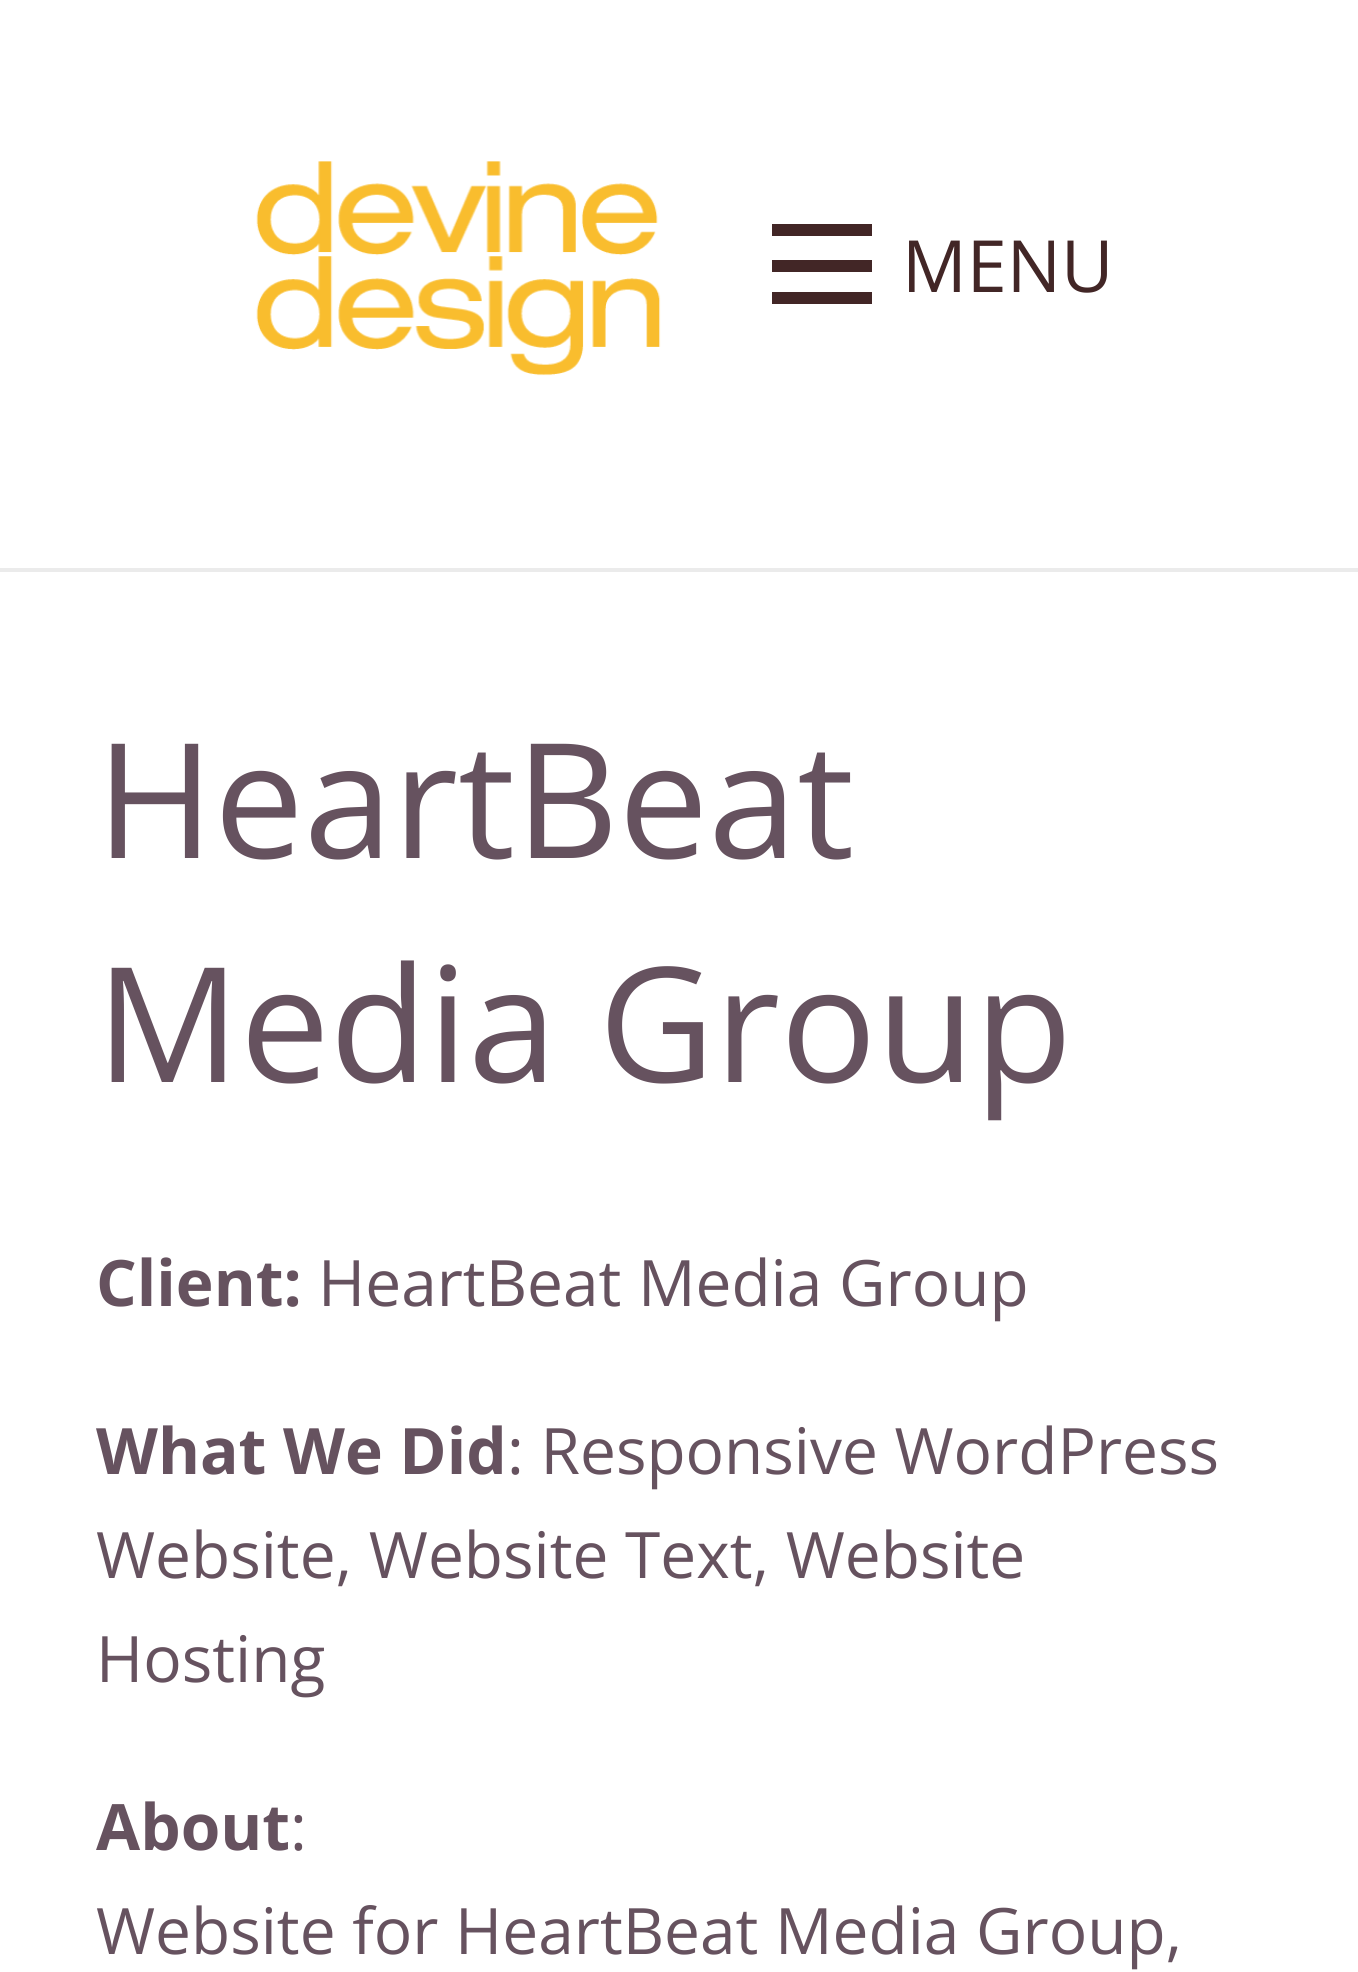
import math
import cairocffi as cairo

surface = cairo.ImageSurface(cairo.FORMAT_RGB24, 1358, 1972)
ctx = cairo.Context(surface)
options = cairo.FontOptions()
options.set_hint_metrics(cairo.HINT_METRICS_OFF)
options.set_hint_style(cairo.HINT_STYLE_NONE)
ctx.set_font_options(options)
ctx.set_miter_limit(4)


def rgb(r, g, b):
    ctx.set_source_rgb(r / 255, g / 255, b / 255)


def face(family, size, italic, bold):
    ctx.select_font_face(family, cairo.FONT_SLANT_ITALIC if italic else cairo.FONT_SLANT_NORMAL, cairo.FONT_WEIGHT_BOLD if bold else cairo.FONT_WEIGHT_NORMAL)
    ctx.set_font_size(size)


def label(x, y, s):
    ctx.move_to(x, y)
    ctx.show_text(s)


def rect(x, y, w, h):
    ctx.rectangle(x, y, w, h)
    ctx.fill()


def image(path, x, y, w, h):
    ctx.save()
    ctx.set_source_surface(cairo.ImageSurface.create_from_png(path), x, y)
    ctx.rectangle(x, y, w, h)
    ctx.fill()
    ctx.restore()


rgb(255, 255, 255)
ctx.paint()
image('image0.png', 256, 161, 405, 215)
rgb(66, 38, 38)
rect(772, 260, 100, 12)
rect(772, 224, 100, 12)
rect(772, 292, 100, 12)
face('Open Sans', 72, 0, 0)
label(902, 292, 'MENU')
rgb(235, 235, 235)
rect(0, 568, 1358, 4)
face('Open Sans', 160, 0, 0)
rgb(102, 82, 95)
label(96, 858, 'HeartBeat')
label(96, 1082, 'Media Group')
face('Open Sans', 64, 0, 1)
label(96, 1306, 'Client:')
face('Open Sans', 64, 0, 0)
label(318, 1306, 'HeartBeat Media Group')
face('Open Sans', 64, 0, 1)
label(96, 1474, 'What We Did')
face('Open Sans', 64, 0, 0)
label(507, 1474, ': Responsive WordPress')
label(96, 1578, 'Website, Website Text, Website')
label(96, 1682, 'Hosting')
face('Open Sans', 64, 0, 1)
label(96, 1850, 'About')
face('Open Sans', 64, 0, 0)
label(290, 1850, ':')
label(96, 1954, 'Website for HeartBeat Media Group,')
surface.write_to_png('render.png')
